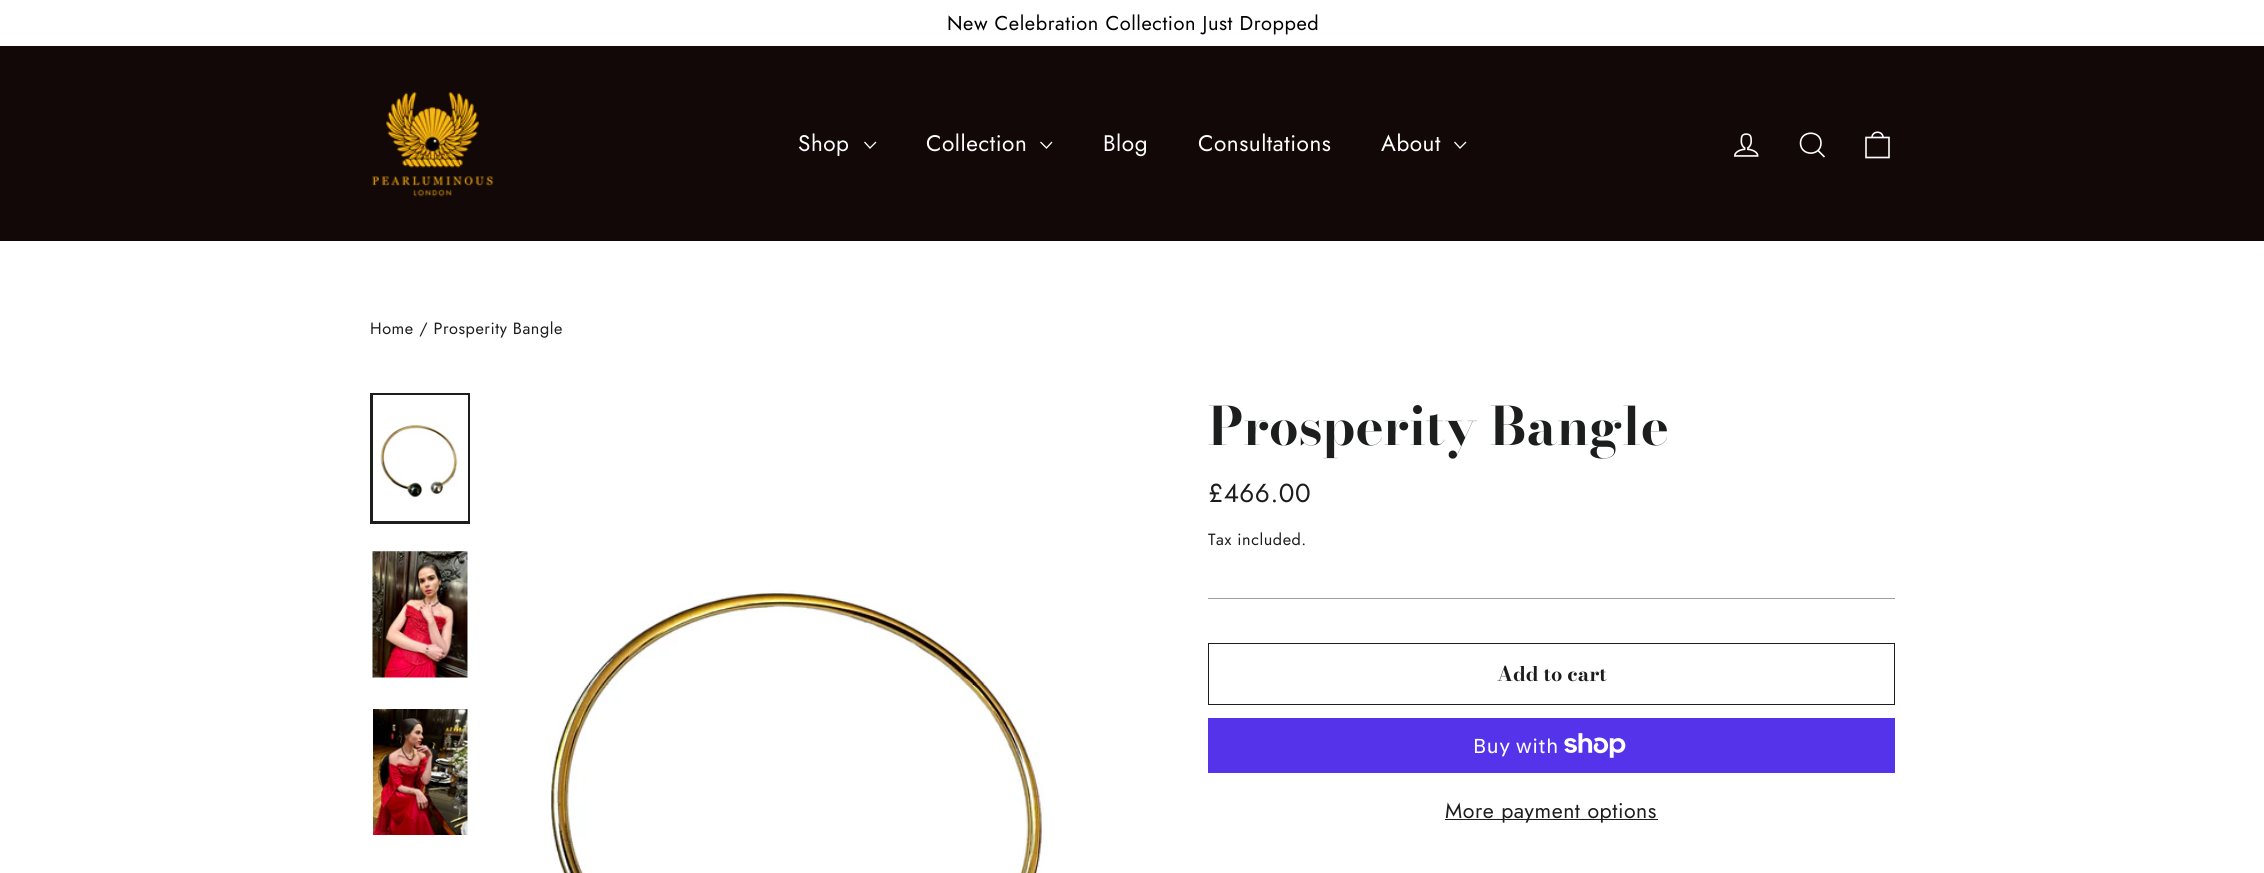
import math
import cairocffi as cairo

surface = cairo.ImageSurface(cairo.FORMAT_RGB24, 2264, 873)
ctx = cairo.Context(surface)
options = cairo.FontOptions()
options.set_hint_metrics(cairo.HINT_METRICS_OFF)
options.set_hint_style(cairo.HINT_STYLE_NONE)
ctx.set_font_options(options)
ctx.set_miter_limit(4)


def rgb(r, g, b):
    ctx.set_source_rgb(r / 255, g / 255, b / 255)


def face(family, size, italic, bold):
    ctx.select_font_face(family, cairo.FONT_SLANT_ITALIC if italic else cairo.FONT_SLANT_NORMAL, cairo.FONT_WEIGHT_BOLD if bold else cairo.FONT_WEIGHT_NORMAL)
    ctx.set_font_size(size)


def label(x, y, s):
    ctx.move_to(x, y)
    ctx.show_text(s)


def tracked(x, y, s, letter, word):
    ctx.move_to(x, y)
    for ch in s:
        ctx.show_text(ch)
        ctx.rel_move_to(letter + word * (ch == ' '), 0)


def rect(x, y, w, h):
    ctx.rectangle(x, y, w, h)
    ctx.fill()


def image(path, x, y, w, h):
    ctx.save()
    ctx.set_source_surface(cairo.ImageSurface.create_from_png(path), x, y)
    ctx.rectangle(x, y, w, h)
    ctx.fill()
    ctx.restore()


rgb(255, 255, 255)
ctx.paint()
face('Jost', 20, 0, 0)
rgb(0, 0, 0)
tracked(947, 30, 'New Celebration Collection Just Dropped', 0.55, 0)
rgb(19, 8, 8)
rect(0, 46, 2264, 195)
image('image0.png', 372, 91, 121, 106)
face('Jost', 22.5, 0, 0)
rgb(255, 255, 255)
tracked(798, 151, 'Shop', 0.55, 0)
ctx.new_path()
ctx.move_to(864.5, 142)
ctx.line_to(870, 148)
ctx.line_to(876, 142)
ctx.set_line_width(1.3)
ctx.stroke()
tracked(926, 151, 'Collection', 0.55, 0)
ctx.new_path()
ctx.move_to(1040.5, 142)
ctx.line_to(1046.5, 148)
ctx.line_to(1052, 142)
ctx.stroke()
tracked(1103, 151, 'Blog', 0.55, 0)
tracked(1198, 151, 'Consultations', 0.55, 0)
tracked(1381, 151, 'About', 0.55, 0)
ctx.new_path()
ctx.move_to(1454.5, 142)
ctx.line_to(1460, 148)
ctx.line_to(1466, 142)
ctx.stroke()
image('image1.png', 1734, 133, 25, 24)
ctx.new_path()
ctx.move_to(1821, 143)
ctx.curve_to(1821, 156.5, 1800.5, 156.5, 1800.5, 143)
ctx.curve_to(1800.5, 130, 1821, 130, 1821, 143)
ctx.close_path()
ctx.move_to(1824.5, 157)
ctx.line_to(1818, 150.5)
ctx.set_line_width(1.6)
ctx.stroke()
ctx.new_path()
ctx.move_to(1866, 137.5)
ctx.line_to(1889, 137.5)
ctx.line_to(1889, 157.5)
ctx.line_to(1866, 157.5)
ctx.close_path()
ctx.move_to(1872, 137.5)
ctx.curve_to(1872, 130.5, 1883, 130.5, 1883, 137.5)
ctx.stroke()
face('Jost', 16.25, 0, 0)
rgb(28, 29, 29)
tracked(370, 334, 'Home / Prosperity Bangle', 0.55, 0)
ctx.rectangle(371.5, 394.5, 97, 128)
ctx.set_line_width(3)
ctx.stroke()
rgb(255, 255, 255)
rect(373, 395, 95, 126)
image('image2.png', 380, 424, 78, 74)
image('image3.png', 372, 551, 96, 127)
image('image4.png', 373, 709, 95, 126)
image('image5.png', 550, 590, 495, 283)
face('Bodoni Moda', 52.5, 0, 1)
rgb(28, 29, 29)
label(1208, 445, 'Prosperity Bangle')
face('Jost', 26, 0, 0)
tracked(1208, 502, '£466.00', 0.55, 0)
face('Jost', 16.25, 0, 0)
tracked(1208, 545, 'Tax included.', 0.55, 0)
rgb(158, 158, 158)
rect(1208, 598, 687, 1)
ctx.rectangle(1208.5, 643.5, 686, 61)
rgb(28, 29, 29)
ctx.set_line_width(1)
ctx.stroke()
face('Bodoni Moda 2', 20, 0, 1)
label(1497, 681, 'Add to cart')
rgb(84, 51, 235)
rect(1208, 718, 687, 55)
face('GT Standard', 20, 0, 0)
rgb(255, 255, 255)
tracked(1473, 753, 'Buy with', 0.55, 0)
image('image6.png', 1564, 733, 62, 25)
rgb(28, 29, 29)
rect(1445, 819, 213, 1)
face('Jost', 21.25, 0, 0)
tracked(1445, 818, 'More payment options', 0.55, 0)
surface.write_to_png('render.png')
